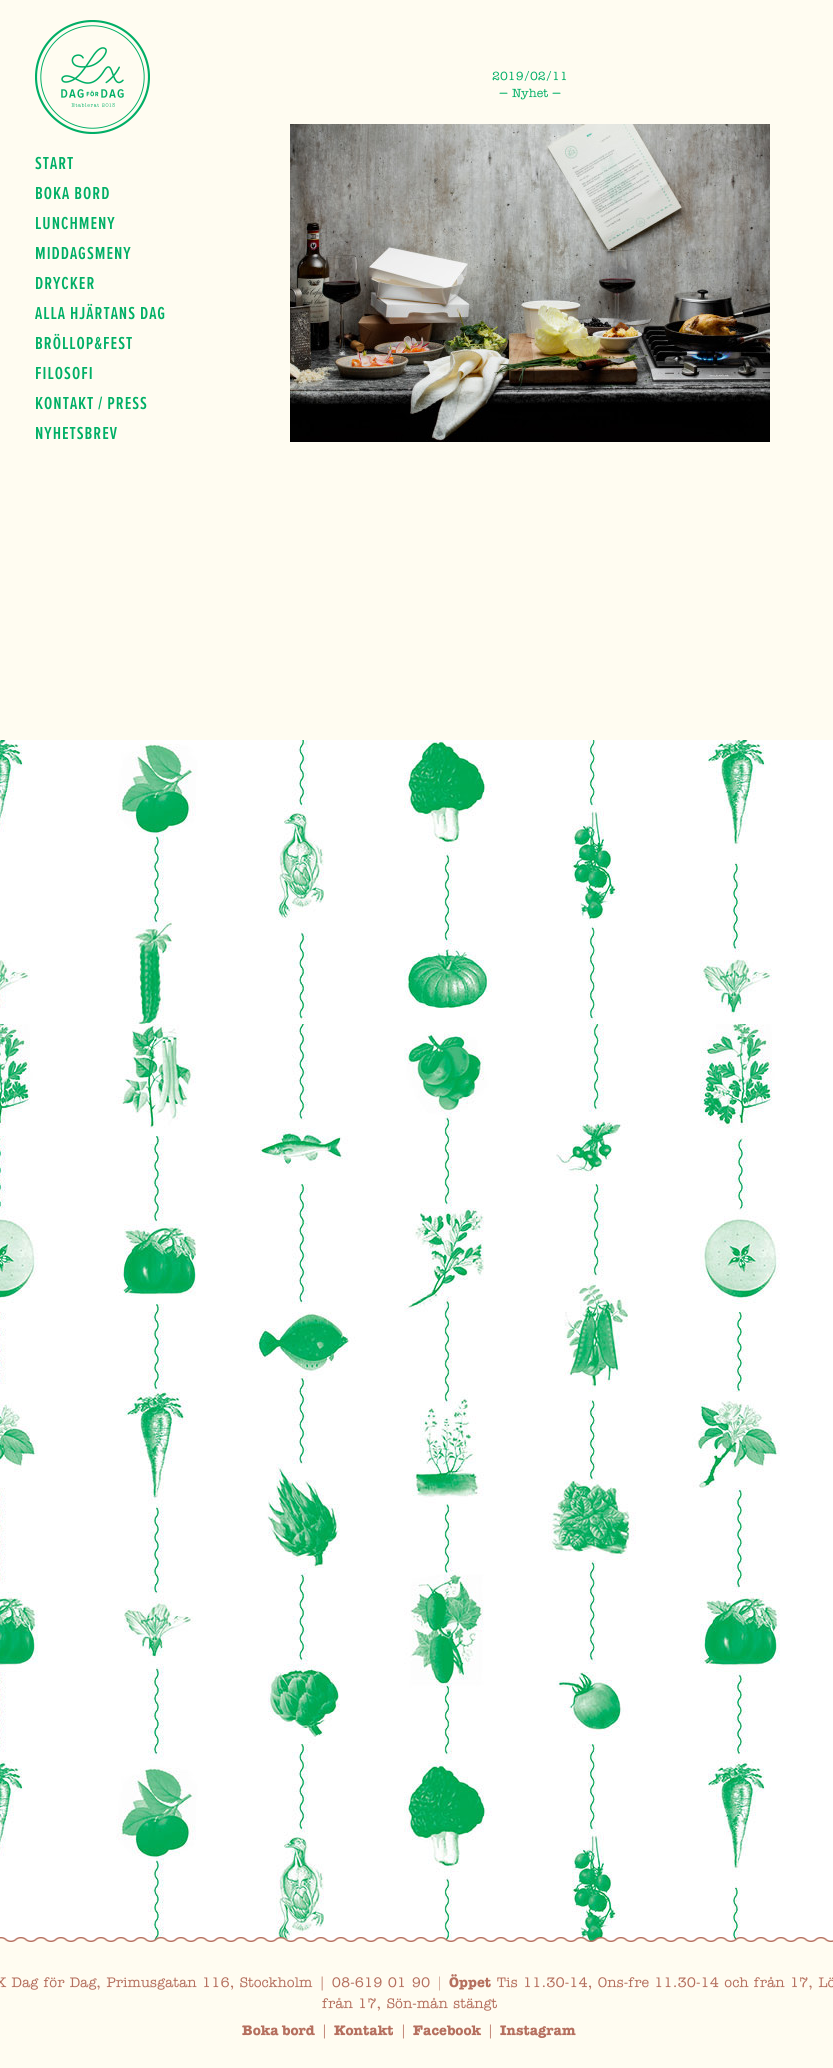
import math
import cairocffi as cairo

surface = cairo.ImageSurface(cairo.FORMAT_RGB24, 833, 2068)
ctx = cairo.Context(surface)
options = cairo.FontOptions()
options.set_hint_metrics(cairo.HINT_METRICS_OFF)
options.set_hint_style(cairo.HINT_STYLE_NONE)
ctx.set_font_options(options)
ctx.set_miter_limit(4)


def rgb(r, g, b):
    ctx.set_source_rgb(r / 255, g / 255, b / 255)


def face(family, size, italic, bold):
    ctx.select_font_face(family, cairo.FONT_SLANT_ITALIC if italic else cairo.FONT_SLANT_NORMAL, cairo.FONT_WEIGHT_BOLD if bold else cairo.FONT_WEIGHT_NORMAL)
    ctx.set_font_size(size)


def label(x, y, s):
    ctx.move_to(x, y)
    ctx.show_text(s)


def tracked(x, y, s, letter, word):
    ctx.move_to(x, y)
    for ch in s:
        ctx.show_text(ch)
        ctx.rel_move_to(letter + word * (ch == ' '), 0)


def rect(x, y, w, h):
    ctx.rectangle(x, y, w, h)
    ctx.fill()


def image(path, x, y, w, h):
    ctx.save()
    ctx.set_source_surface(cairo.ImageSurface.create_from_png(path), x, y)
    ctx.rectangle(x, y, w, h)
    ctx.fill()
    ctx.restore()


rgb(255, 255, 255)
ctx.paint()
image('image0.png', 0, 740, 780, 1202)
rgb(255, 252, 241)
rect(0, 0, 833, 740)
face('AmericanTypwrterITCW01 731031 Medium', 12, 0, 0)
rgb(0, 175, 102)
label(492, 80, '2019/02/11')
face('AmericanTypwrterITCW01 731031 Medium', 14, 0, 0)
label(500, 97, '–')
face('AmericanTypwrterITCW01 731031 Medium', 12, 0, 0)
label(512, 97, 'Nyhet')
face('AmericanTypwrterITCW01 731031 Medium', 14, 0, 0)
label(553, 97, '–')
image('image1.png', 290, 124, 480, 318)
image('image2.png', 35, 20, 115, 114)
face('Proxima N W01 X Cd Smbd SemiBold', 18, 0, 0)
tracked(35, 169, 'START', 1, 0)
tracked(35, 199, 'BOKA BORD', 1, 0)
tracked(35, 229, 'LUNCHMENY', 1, 0)
tracked(35, 259, 'MIDDAGSMENY', 1, 0)
tracked(35, 289, 'DRYCKER', 1, 0)
tracked(35, 319, 'ALLA HJÄRTANS DAG', 1, 0)
tracked(35, 349, 'BRÖLLOP&FEST', 1, 0)
tracked(35, 379, 'FILOSOFI', 1, 0)
tracked(35, 409, 'KONTAKT / PRESS', 1, 0)
tracked(35, 439, 'NYHETSBREV', 1, 0)
rgb(255, 252, 241)
rect(0, 1942, 833, 126)
image('image3.png', 0, 1937, 833, 5)
face('AmericanTypwrterITCW01 731031 Medium', 14, 0, 0)
rgb(181, 111, 94)
label(-5, 1987, 'X Dag för Dag, Primusgatan 116, Stockholm | 08-619 01 90 |')
face('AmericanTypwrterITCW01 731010', 14, 0, 1)
label(449, 1987, 'Öppet')
face('AmericanTypwrterITCW01 731031 Medium', 14, 0, 0)
label(497, 1987, 'Tis 11.30-14, Ons-fre 11.30-14 och från 17, Lö')
label(322, 2008, 'från 17, Sön-mån stängt')
face('AmericanTypwrterITCW01 731010', 14, 0, 1)
label(242, 2035, 'Boka bord')
face('AmericanTypwrterITCW01 731031 Medium', 14, 0, 0)
label(320, 2035, '|')
face('AmericanTypwrterITCW01 731010', 14, 0, 1)
label(334, 2035, 'Kontakt')
face('AmericanTypwrterITCW01 731031 Medium', 14, 0, 0)
label(399, 2035, '|')
face('AmericanTypwrterITCW01 731010', 14, 0, 1)
label(413, 2035, 'Facebook')
face('AmericanTypwrterITCW01 731031 Medium', 14, 0, 0)
label(486, 2035, '|')
face('AmericanTypwrterITCW01 731010', 14, 0, 1)
label(500, 2035, 'Instagram')
surface.write_to_png('render.png')
